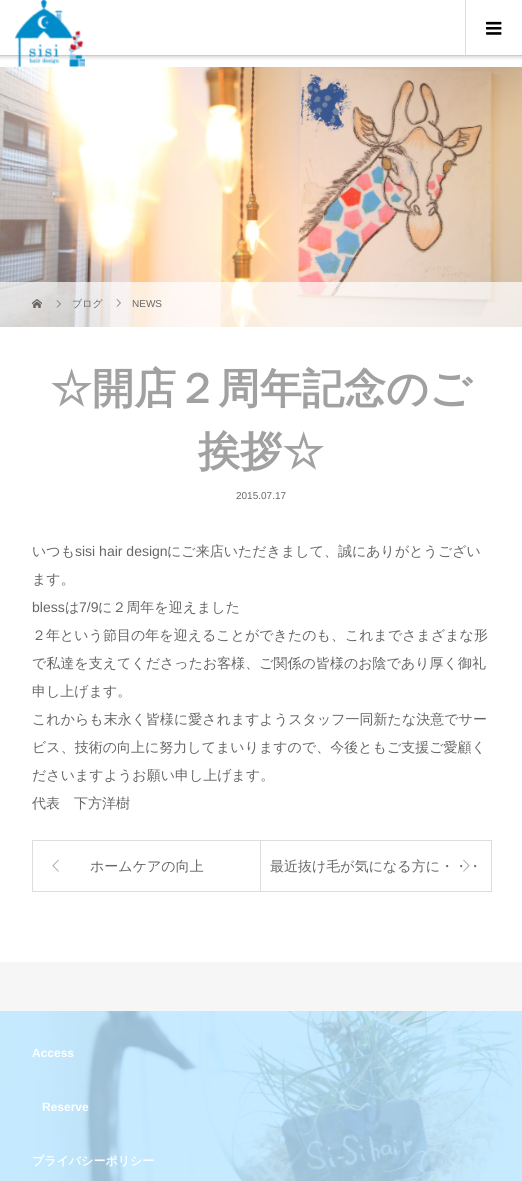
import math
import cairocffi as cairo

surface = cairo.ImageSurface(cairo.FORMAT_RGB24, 522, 1181)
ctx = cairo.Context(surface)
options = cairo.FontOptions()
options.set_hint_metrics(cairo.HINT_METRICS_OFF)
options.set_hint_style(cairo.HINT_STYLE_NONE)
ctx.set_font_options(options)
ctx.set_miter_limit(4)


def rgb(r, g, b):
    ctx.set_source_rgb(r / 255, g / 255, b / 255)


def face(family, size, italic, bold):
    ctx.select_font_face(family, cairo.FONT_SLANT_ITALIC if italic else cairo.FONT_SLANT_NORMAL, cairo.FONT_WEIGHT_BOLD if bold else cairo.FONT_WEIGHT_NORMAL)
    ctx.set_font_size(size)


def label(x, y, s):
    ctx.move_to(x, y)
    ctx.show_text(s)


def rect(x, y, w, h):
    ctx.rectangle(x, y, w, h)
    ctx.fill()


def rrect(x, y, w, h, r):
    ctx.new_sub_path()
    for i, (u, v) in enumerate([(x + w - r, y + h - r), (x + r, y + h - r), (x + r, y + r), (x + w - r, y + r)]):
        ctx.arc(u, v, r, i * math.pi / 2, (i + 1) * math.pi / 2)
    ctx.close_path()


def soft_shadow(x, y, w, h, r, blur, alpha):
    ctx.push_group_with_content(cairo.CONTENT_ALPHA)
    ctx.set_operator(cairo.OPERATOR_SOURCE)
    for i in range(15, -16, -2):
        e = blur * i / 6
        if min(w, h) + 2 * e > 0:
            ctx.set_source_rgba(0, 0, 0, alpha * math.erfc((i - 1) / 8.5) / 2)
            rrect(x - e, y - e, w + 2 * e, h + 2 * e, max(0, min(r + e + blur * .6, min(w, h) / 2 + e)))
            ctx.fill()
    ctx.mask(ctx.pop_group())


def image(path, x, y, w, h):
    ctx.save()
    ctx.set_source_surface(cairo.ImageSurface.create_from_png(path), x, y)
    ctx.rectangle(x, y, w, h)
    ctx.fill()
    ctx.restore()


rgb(255, 255, 255)
ctx.paint()
ctx.save()
ctx.rectangle(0, 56, 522, 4)
ctx.clip()
rgb(0, 0, 0)
soft_shadow(0, 1, 522, 56, 0, 2, 0.2)
ctx.restore()
rgb(204, 204, 204)
rect(0, 55, 522, 1)
image('image0.png', 15, 0, 70, 67)
rgb(221, 221, 221)
rect(465, 0, 1, 56)
image('image1.png', 486, 21, 16, 14)
image('image2.png', 0, 67, 522, 260)
ctx.set_source_rgba(1, 1, 1, 0.7)
rect(0, 282, 522, 45)
image('image3.png', 32, 299, 10, 9)
image('image4.png', 56, 300, 5, 8)
face('WenQuanYi Zen Hei Medium', 10, 0, 0)
rgb(102, 102, 102)
label(72, 307, 'ブログ')
image('image5.png', 116, 299, 5, 8)
face('Liberation Sans', 10, 0, 0)
label(132, 307, 'NEWS')
face('WenQuanYi Zen Hei', 42, 0, 1)
rgb(161, 161, 161)
label(50, 403, '☆開店２周年記念のご')
label(198, 466, '挨拶☆')
face('Liberation Sans', 10, 0, 0)
rgb(102, 102, 102)
label(236, 499, '2015.07.17')
face('WenQuanYi Zen Hei Medium', 14, 0, 0)
label(32, 556, 'いつも')
face('Liberation Sans', 14, 0, 0)
label(75, 556, 'sisi hair design')
face('WenQuanYi Zen Hei Medium', 14, 0, 0)
label(167, 556, 'にご来店いただきまして、誠にありがとうござい')
label(32, 584, 'ます。')
face('Liberation Sans', 14, 0, 0)
label(32, 612, 'bless')
face('WenQuanYi Zen Hei Medium', 14, 0, 0)
label(65, 612, 'は')
face('Liberation Sans', 14, 0, 0)
label(79, 612, '7/9')
face('WenQuanYi Zen Hei Medium', 14, 0, 0)
label(98, 612, 'に２周年を迎えました')
label(32, 640, '２年という節目の年を迎えることができたのも、これまでさまざまな形')
label(32, 668, 'で私達を支えてくださったお客様、ご関係の皆様のお陰であり厚く御礼')
label(32, 696, '申し上げます。')
label(32, 724, 'これからも末永く皆様に愛されますようスタッフ一同新たな決意でサー')
label(32, 752, 'ビス、技術の向上に努力してまいりますので、今後ともご支援ご愛顧く')
label(32, 780, 'ださいますようお願い申し上げます。')
label(32, 808, '代表　下方洋樹')
ctx.rectangle(32.5, 840.5, 459, 51)
rgb(221, 221, 221)
ctx.set_line_width(1)
ctx.stroke()
image('image6.png', 52, 859, 7, 13)
rgb(102, 102, 102)
label(90, 871, 'ホームケアの向上')
rgb(221, 221, 221)
rect(260, 841, 1, 50)
rgb(102, 102, 102)
label(270, 871, '最近抜け毛が気になる方に・・・')
image('image7.png', 463, 859, 7, 13)
rgb(246, 246, 246)
rect(0, 962, 522, 49)
image('image8.png', 0, 1011, 522, 170)
face('Liberation Sans', 12, 0, 1)
rgb(255, 255, 255)
label(32, 1057, 'Access')
label(42, 1111, 'Reserve')
face('WenQuanYi Zen Hei', 12, 0, 1)
label(32, 1165, 'プライバシーポリシー')
surface.write_to_png('render.png')
